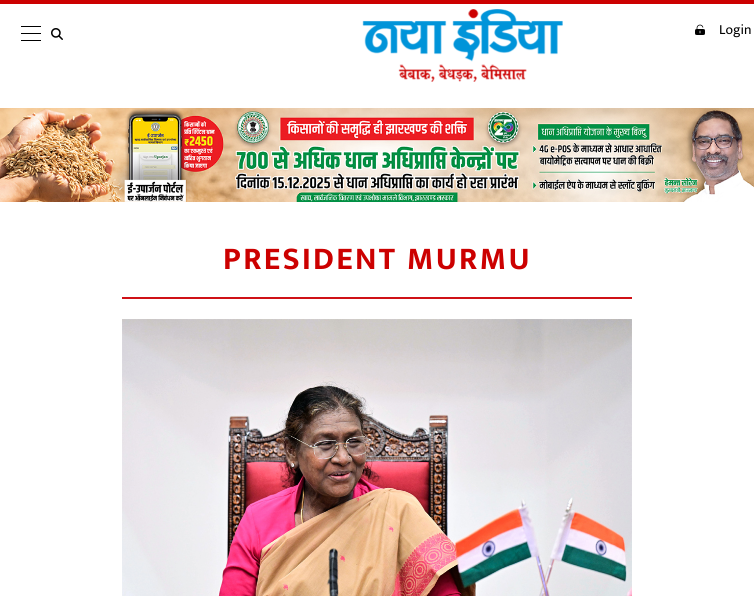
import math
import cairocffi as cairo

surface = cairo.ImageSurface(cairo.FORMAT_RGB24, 754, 596)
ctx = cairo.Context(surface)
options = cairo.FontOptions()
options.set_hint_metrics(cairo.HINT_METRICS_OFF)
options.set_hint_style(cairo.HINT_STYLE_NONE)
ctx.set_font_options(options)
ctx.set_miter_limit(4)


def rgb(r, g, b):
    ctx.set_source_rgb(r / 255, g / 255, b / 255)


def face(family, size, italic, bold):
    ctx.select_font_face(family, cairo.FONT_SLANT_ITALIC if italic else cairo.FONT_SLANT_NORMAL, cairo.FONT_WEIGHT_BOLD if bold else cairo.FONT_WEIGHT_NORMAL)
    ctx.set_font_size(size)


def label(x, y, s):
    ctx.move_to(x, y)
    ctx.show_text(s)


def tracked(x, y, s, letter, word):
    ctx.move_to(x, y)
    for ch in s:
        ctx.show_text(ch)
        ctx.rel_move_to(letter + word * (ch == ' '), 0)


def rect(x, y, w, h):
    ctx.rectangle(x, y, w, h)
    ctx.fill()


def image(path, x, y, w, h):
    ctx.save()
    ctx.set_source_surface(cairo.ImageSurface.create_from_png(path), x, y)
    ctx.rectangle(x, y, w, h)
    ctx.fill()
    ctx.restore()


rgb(255, 255, 255)
ctx.paint()
rgb(204, 0, 0)
rect(0, 0, 754, 4)
rgb(0, 0, 0)
rect(21, 33, 20, 1)
rect(21, 26, 20, 1)
rect(21, 40, 20, 1)
image('image0.png', 51, 28, 12, 12)
image('image1.png', 362, 9, 201, 73)
image('image2.png', 695, 24, 10, 11)
face('Mukta', 14, 0, 0)
label(719, 34, 'Login')
image('image3.png', 0, 108, 754, 94)
rgb(207, 17, 23)
rect(122, 297, 510, 2)
face('Mukta', 32, 0, 1)
rgb(204, 0, 0)
tracked(223, 269, 'PRESIDENT MURMU', 2.25, 0)
image('image4.png', 122, 319, 510, 277)
surface.write_to_png('render.png')
